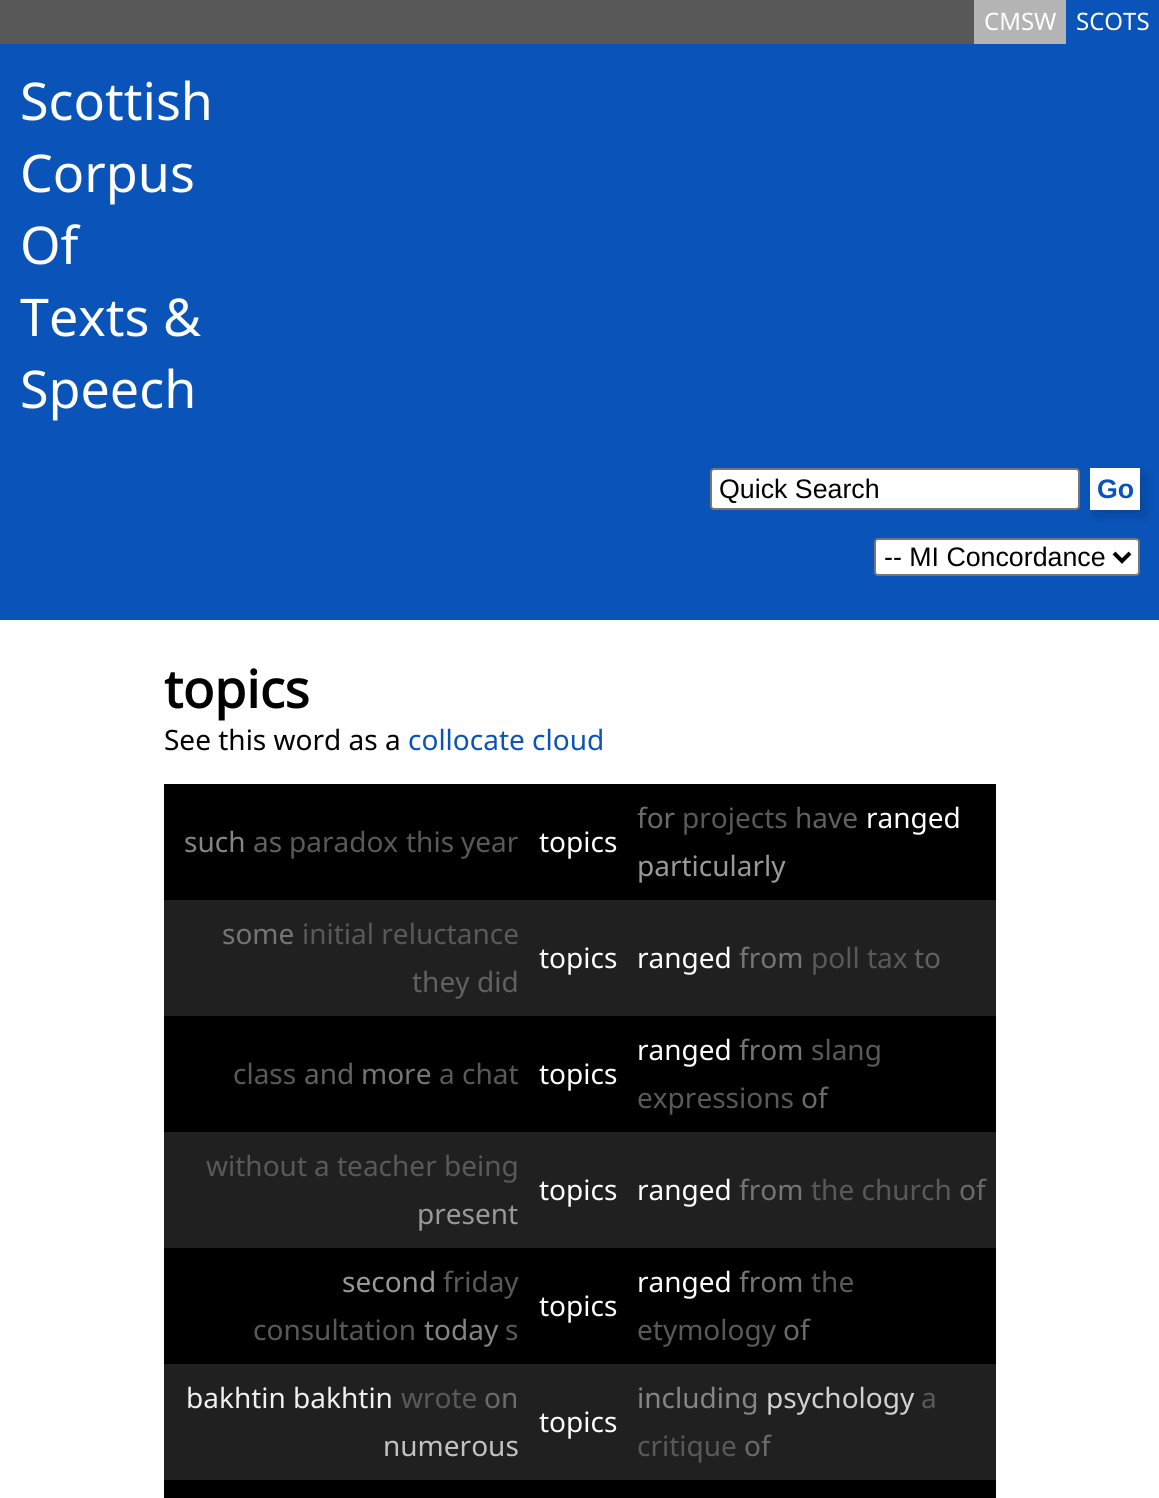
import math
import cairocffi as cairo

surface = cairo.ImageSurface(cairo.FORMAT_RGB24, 1159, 1498)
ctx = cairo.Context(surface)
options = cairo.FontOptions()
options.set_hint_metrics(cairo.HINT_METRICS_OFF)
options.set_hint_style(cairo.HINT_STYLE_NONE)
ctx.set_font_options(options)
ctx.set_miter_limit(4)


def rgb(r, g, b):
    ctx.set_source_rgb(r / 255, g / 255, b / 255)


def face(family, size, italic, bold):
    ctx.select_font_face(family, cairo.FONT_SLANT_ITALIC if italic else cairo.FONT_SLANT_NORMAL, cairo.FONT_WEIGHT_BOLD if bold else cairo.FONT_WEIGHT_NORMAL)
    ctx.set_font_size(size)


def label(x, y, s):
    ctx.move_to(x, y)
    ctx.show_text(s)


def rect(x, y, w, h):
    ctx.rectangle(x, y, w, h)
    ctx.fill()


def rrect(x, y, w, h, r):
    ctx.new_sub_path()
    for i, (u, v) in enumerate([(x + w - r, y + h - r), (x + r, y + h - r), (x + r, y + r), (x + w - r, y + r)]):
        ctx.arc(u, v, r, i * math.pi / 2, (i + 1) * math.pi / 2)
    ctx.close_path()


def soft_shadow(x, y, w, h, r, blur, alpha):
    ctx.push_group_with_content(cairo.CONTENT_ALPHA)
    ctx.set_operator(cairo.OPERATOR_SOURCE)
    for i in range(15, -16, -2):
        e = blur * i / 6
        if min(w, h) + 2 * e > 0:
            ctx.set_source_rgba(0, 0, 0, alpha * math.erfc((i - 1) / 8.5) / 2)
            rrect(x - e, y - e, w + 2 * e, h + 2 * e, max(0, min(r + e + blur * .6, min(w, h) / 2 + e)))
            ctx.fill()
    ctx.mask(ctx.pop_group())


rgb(10, 83, 185)
ctx.paint()
rgb(88, 88, 88)
rect(0, 0, 974, 44)
rgb(180, 180, 180)
rect(974, 0, 92, 44)
face('Noto Sans', 24, 0, 0)
rgb(255, 255, 255)
label(984, 30, 'CMSW')
label(1076, 30, 'SCOTS')
face('Noto Sans', 52, 0, 0)
label(20, 120, 'Scottish')
label(20, 192, 'Corpus')
label(20, 264, 'Of')
label(20, 336, 'Texts &')
label(20, 408, 'Speech')
rrect(711, 469, 368, 40, 3)
ctx.fill_preserve()
rgb(118, 118, 118)
ctx.stroke()
face('Liberation Sans', 26.75, 0, 0)
rgb(0, 0, 0)
label(719, 498, 'Quick Search')
rgb(0, 0, 0)
soft_shadow(1096, 474, 50, 42, 0, 5, 0.15)
rgb(255, 255, 255)
rect(1090, 468, 50, 42)
face('Liberation Sans', 26.75, 0, 1)
rgb(10, 83, 185)
label(1097, 498, 'Go')
rgb(255, 255, 255)
rrect(875, 539, 264, 36, 3)
ctx.fill_preserve()
rgb(118, 118, 118)
ctx.stroke()
ctx.new_path()
ctx.move_to(1114, 553)
ctx.line_to(1122, 561)
ctx.line_to(1130, 553)
rgb(0, 0, 0)
ctx.set_line_width(4)
ctx.stroke()
face('Liberation Sans', 26.75, 0, 0)
label(884, 566, '-- MI Concordance')
rgb(255, 255, 255)
rect(0, 620, 1159, 878)
face('Noto Sans', 52, 0, 1)
rgb(0, 0, 0)
label(164, 708, 'topics')
face('Noto Sans', 28, 0, 0)
label(164, 750, 'See this word as a')
rgb(10, 83, 185)
label(408, 750, 'collocate cloud')
rgb(0, 0, 0)
rect(164, 784, 832, 116)
rgb(133, 133, 133)
label(184, 852, 'such')
rgb(97, 97, 97)
label(253, 852, 'as')
rgb(89, 89, 89)
label(289, 852, 'paradox')
label(406, 852, 'this')
label(461, 852, 'year')
rgb(255, 255, 255)
label(539, 852, 'topics')
rgb(107, 107, 107)
label(637, 828, 'for')
rgb(89, 89, 89)
label(682, 828, 'projects')
rgb(97, 97, 97)
label(795, 828, 'have')
rgb(255, 255, 255)
label(866, 828, 'ranged')
rgb(153, 153, 153)
label(637, 876, 'particularly')
rgb(32, 32, 32)
rect(164, 900, 832, 116)
rgb(117, 117, 117)
label(222, 944, 'some')
rgb(89, 89, 89)
label(302, 944, 'initial reluctance')
rgb(97, 97, 97)
label(412, 992, 'they')
label(477, 992, 'did')
rgb(255, 255, 255)
label(539, 968, 'topics')
label(637, 968, 'ranged')
rgb(117, 117, 117)
label(739, 968, 'from')
rgb(89, 89, 89)
label(811, 968, 'poll tax')
rgb(97, 97, 97)
label(914, 968, 'to')
rgb(0, 0, 0)
rect(164, 1016, 832, 116)
rgb(89, 89, 89)
label(233, 1084, 'class')
rgb(97, 97, 97)
label(304, 1084, 'and')
rgb(117, 117, 117)
label(361, 1084, 'more')
rgb(89, 89, 89)
label(439, 1084, 'a')
label(462, 1084, 'chat')
rgb(255, 255, 255)
label(539, 1084, 'topics')
label(637, 1060, 'ranged')
rgb(117, 117, 117)
label(739, 1060, 'from')
rgb(89, 89, 89)
label(811, 1060, 'slang')
label(637, 1108, 'expressions')
rgb(107, 107, 107)
label(801, 1108, 'of')
rgb(32, 32, 32)
rect(164, 1132, 832, 116)
rgb(89, 89, 89)
label(206, 1176, 'without')
label(314, 1176, 'a')
label(337, 1176, 'teacher being')
rgb(153, 153, 153)
label(417, 1224, 'present')
rgb(255, 255, 255)
label(539, 1200, 'topics')
label(637, 1200, 'ranged')
rgb(117, 117, 117)
label(739, 1200, 'from')
rgb(89, 89, 89)
label(811, 1200, 'the church')
rgb(107, 107, 107)
label(959, 1200, 'of')
rgb(0, 0, 0)
rect(164, 1248, 832, 116)
rgb(153, 153, 153)
label(342, 1292, 'second')
rgb(89, 89, 89)
label(443, 1292, 'friday')
label(253, 1340, 'consultation')
rgb(133, 133, 133)
label(424, 1340, 'today')
rgb(89, 89, 89)
label(505, 1340, 's')
rgb(255, 255, 255)
label(539, 1316, 'topics')
label(637, 1292, 'ranged')
rgb(117, 117, 117)
label(739, 1292, 'from')
rgb(89, 89, 89)
label(811, 1292, 'the')
label(637, 1340, 'etymology')
rgb(107, 107, 107)
label(783, 1340, 'of')
rgb(32, 32, 32)
rect(164, 1364, 832, 116)
rgb(240, 240, 240)
label(186, 1408, 'bakhtin bakhtin')
rgb(89, 89, 89)
label(401, 1408, 'wrote')
rgb(107, 107, 107)
label(484, 1408, 'on')
rgb(194, 194, 194)
label(383, 1456, 'numerous')
rgb(255, 255, 255)
label(539, 1432, 'topics')
rgb(133, 133, 133)
label(637, 1408, 'including')
rgb(209, 209, 209)
label(766, 1408, 'psychology')
rgb(89, 89, 89)
label(921, 1408, 'a')
label(637, 1456, 'critique')
rgb(107, 107, 107)
label(744, 1456, 'of')
rgb(0, 0, 0)
rect(164, 1480, 832, 18)
surface.write_to_png('render.png')
